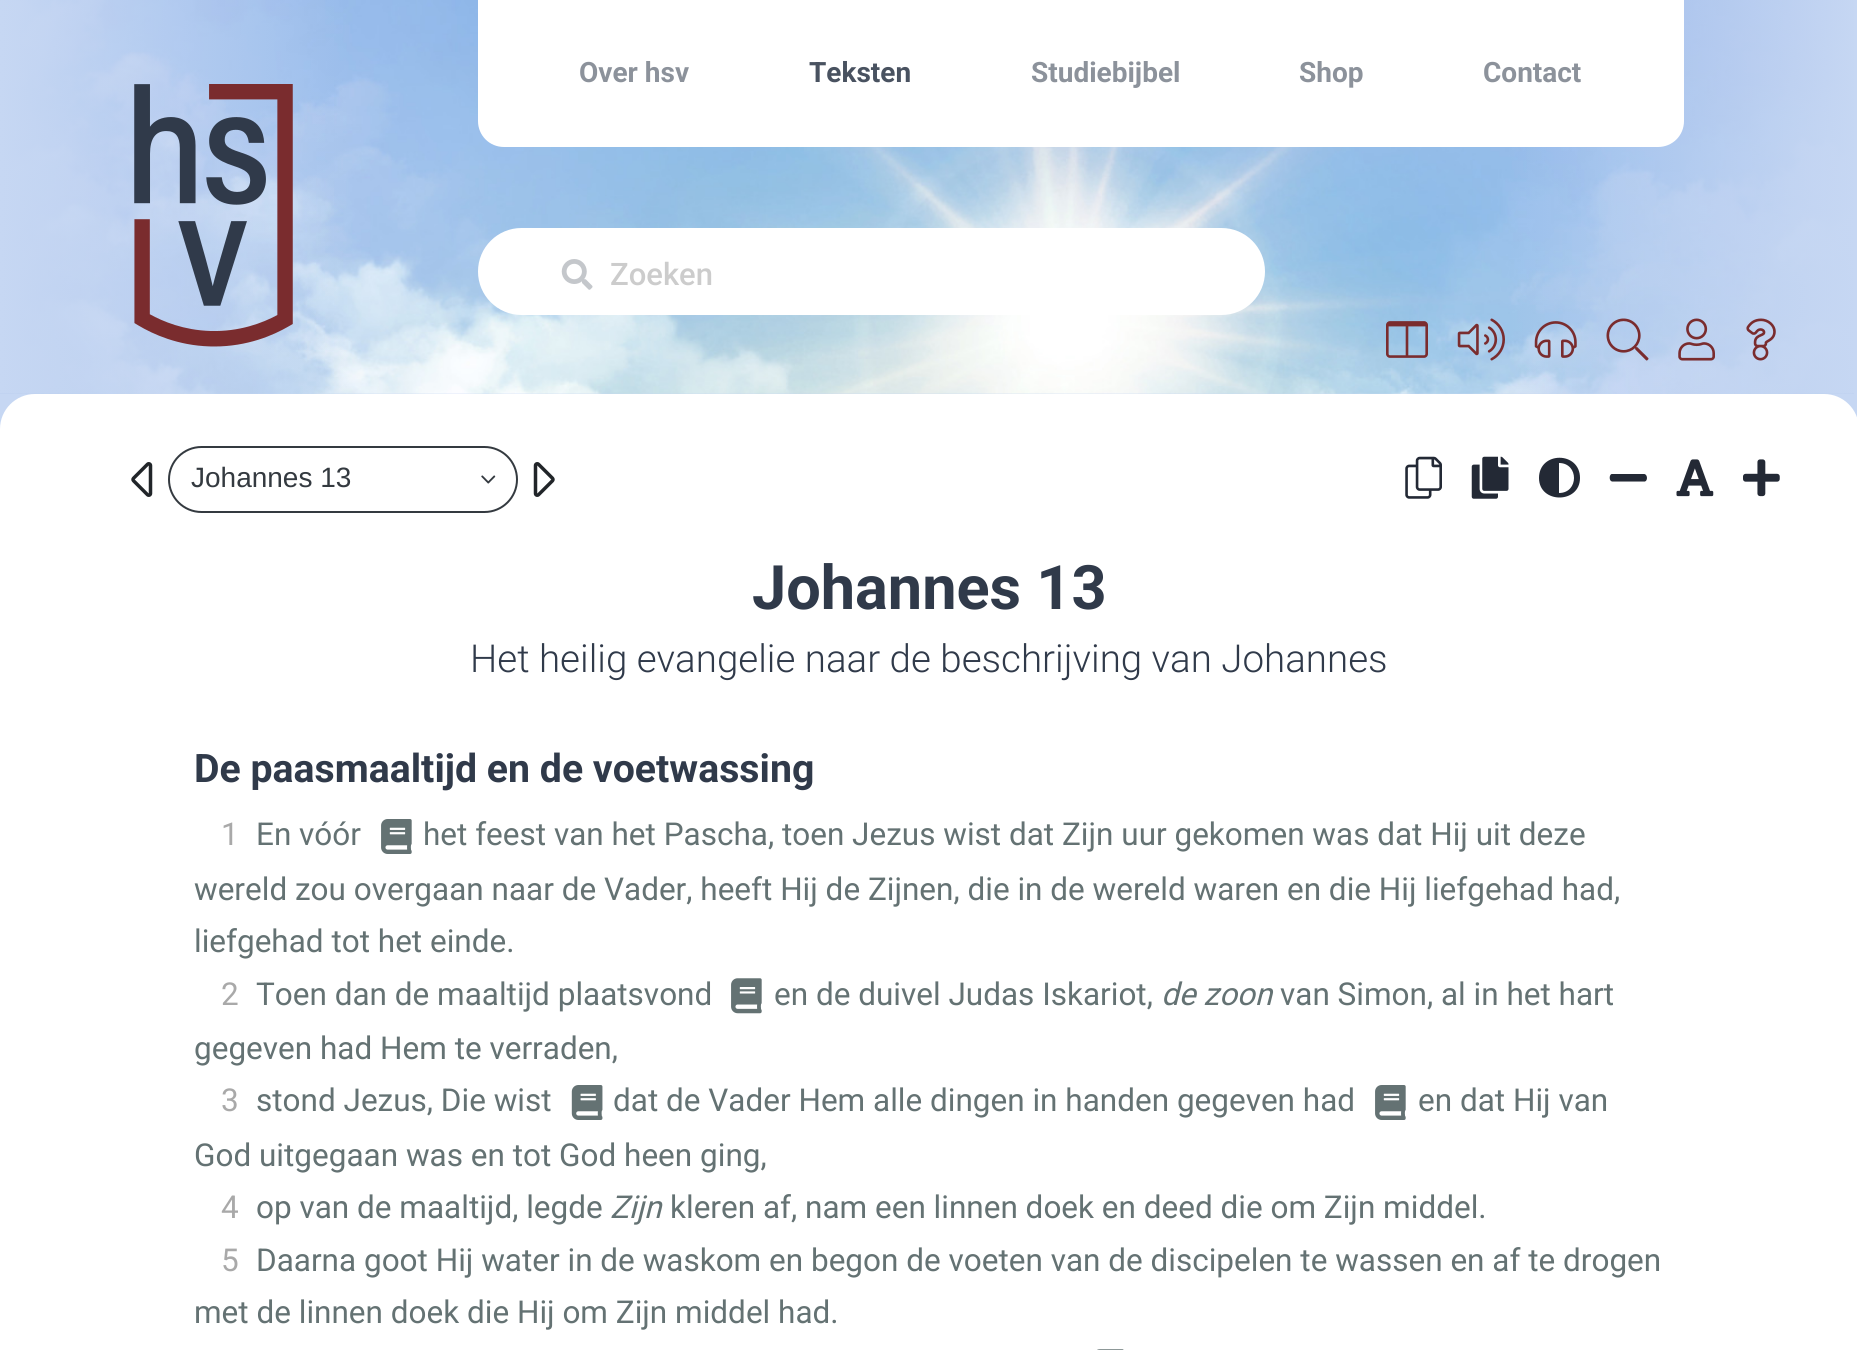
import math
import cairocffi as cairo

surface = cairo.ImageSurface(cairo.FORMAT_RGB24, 1857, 1350)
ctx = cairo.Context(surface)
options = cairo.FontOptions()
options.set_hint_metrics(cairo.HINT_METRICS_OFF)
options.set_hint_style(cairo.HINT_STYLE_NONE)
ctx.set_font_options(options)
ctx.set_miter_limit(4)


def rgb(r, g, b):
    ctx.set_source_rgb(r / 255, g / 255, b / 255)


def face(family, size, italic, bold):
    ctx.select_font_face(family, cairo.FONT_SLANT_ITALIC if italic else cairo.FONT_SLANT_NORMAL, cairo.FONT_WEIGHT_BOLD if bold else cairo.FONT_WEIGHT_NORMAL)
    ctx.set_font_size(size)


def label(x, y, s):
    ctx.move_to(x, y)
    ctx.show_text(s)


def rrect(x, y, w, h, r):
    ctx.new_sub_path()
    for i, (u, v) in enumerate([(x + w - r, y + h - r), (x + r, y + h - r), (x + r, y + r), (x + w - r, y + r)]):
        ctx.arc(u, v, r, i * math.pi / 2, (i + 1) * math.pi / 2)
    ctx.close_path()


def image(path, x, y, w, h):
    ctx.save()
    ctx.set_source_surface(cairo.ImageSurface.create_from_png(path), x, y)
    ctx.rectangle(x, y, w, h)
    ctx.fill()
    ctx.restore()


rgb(198, 215, 243)
ctx.paint()
image('image0.png', 0, 0, 1854, 394)
image('image1.png', 134, 84, 159, 263)
rgb(255, 255, 255)
ctx.new_path()
ctx.move_to(478, 0)
ctx.line_to(1684, 0)
ctx.line_to(1684, 121)
ctx.curve_to(1684, 135.5, 1672.5, 147, 1658, 147)
ctx.line_to(504, 147)
ctx.curve_to(489.5, 147, 478, 135.5, 478, 121)
ctx.close_path()
ctx.fill()
face('Roboto', 28, 0, 1)
rgb(140, 146, 155)
label(579, 82, 'Over hsv')
rgb(73, 82, 96)
label(809, 82, 'Teksten')
rgb(140, 146, 155)
label(1031, 82, 'Studiebijbel')
label(1299, 82, 'Shop')
label(1483, 82, 'Contact')
rgb(255, 255, 255)
rrect(478, 228, 787, 87, 43.5)
ctx.fill()
image('image2.png', 561, 259, 32, 31)
face('Roboto Medium', 31, 0, 0)
rgb(204, 204, 204)
label(610, 285, 'Zoeken')
rgb(255, 255, 255)
rrect(0, 394, 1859, 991, 35)
ctx.fill()
image('image3.png', 1386, 321, 42, 37)
image('image4.png', 1457, 318, 48, 43)
image('image5.png', 1534, 321, 43, 37)
image('image6.png', 1606, 318, 43, 43)
image('image7.png', 1678, 318, 37, 43)
image('image8.png', 1746, 318, 30, 43)
image('image9.png', 131, 462, 22, 35)
rrect(169, 447, 348, 65, 32.5)
rgb(52, 58, 64)
ctx.stroke()
face('Liberation Sans', 28, 0, 0)
label(191, 487, 'Johannes 13')
image('image10.png', 481, 475, 15, 9)
image('image11.png', 533, 462, 22, 35)
image('image12.png', 1405, 456, 37, 43)
image('image13.png', 1471, 456, 38, 43)
rgb(35, 41, 53)
ctx.new_path()
ctx.move_to(1539, 478)
ctx.curve_to(1539, 504, 1580, 504, 1580, 478)
ctx.curve_to(1580, 451, 1539, 451, 1539, 478)
ctx.close_path()
ctx.move_to(1559, 493)
ctx.line_to(1559, 463)
ctx.curve_to(1579, 463, 1579, 493, 1559, 493)
ctx.close_path()
ctx.fill()
ctx.new_path()
ctx.move_to(1644, 474)
ctx.line_to(1611.5, 474)
ctx.curve_to(1609, 475, 1609, 481, 1612, 481.5)
ctx.line_to(1645, 481.5)
ctx.curve_to(1648, 480.5, 1647.5, 474, 1644, 474)
ctx.close_path()
ctx.fill()
image('image14.png', 1676, 459, 38, 38)
image('image15.png', 1743, 459, 37, 38)
face('Roboto', 61.25, 0, 1)
rgb(48, 58, 74)
label(752, 609, 'Johannes 13')
face('Roboto Light', 38.5, 0, 0)
label(470, 672, 'Het heilig evangelie naar de beschrijving van Johannes')
face('Roboto', 39.25, 0, 1)
label(194, 782, 'De paasmaaltijd en de voetwassing')
face('Roboto', 31.5, 0, 0)
rgb(169, 169, 169)
label(221, 845, '1')
rgb(100, 114, 115)
label(256, 845, 'En vóór')
image('image16.png', 381, 819, 31, 35)
label(423, 845, 'het feest van het Pascha, toen Jezus wist dat Zijn uur gekomen was dat Hij uit deze')
label(194, 900, 'wereld zou overgaan naar de Vader, heeft Hij de Zijnen, die in de wereld waren en die Hij liefgehad had,')
label(194, 952, 'liefgehad tot het einde.')
rgb(169, 169, 169)
label(221, 1005, '2')
rgb(100, 114, 115)
label(256, 1005, 'Toen dan de maaltijd plaatsvond')
image('image17.png', 731, 978, 31, 36)
label(774, 1005, 'en de duivel Judas Iskariot,')
face('Roboto', 31.5, 1, 0)
label(1161, 1005, 'de zoon')
face('Roboto', 31.5, 0, 0)
label(1280, 1005, 'van Simon, al in het hart')
label(194, 1059, 'gegeven had Hem te verraden,')
rgb(169, 169, 169)
label(221, 1111, '3')
rgb(100, 114, 115)
label(256, 1111, 'stond Jezus, Die wist')
image('image18.png', 571, 1085, 32, 35)
label(613, 1111, 'dat de Vader Hem alle dingen in handen gegeven had')
image('image16.png', 1375, 1085, 31, 35)
label(1418, 1111, 'en dat Hij van')
label(194, 1166, 'God uitgegaan was en tot God heen ging,')
rgb(169, 169, 169)
label(221, 1218, '4')
rgb(100, 114, 115)
label(256, 1218, 'op van de maaltijd, legde')
face('Roboto', 31.5, 1, 0)
label(610, 1218, 'Zijn')
face('Roboto', 31.5, 0, 0)
label(670, 1218, 'kleren af, nam een linnen doek en deed die om Zijn middel.')
rgb(169, 169, 169)
label(221, 1271, '5')
rgb(100, 114, 115)
label(256, 1271, 'Daarna goot Hij water in de waskom en begon de voeten van de discipelen te wassen en af te drogen')
label(194, 1323, 'met de linnen doek die Hij om Zijn middel had.')
image('image19.png', 1097, 1349, 27, 1)
surface.write_to_png('render.png')
